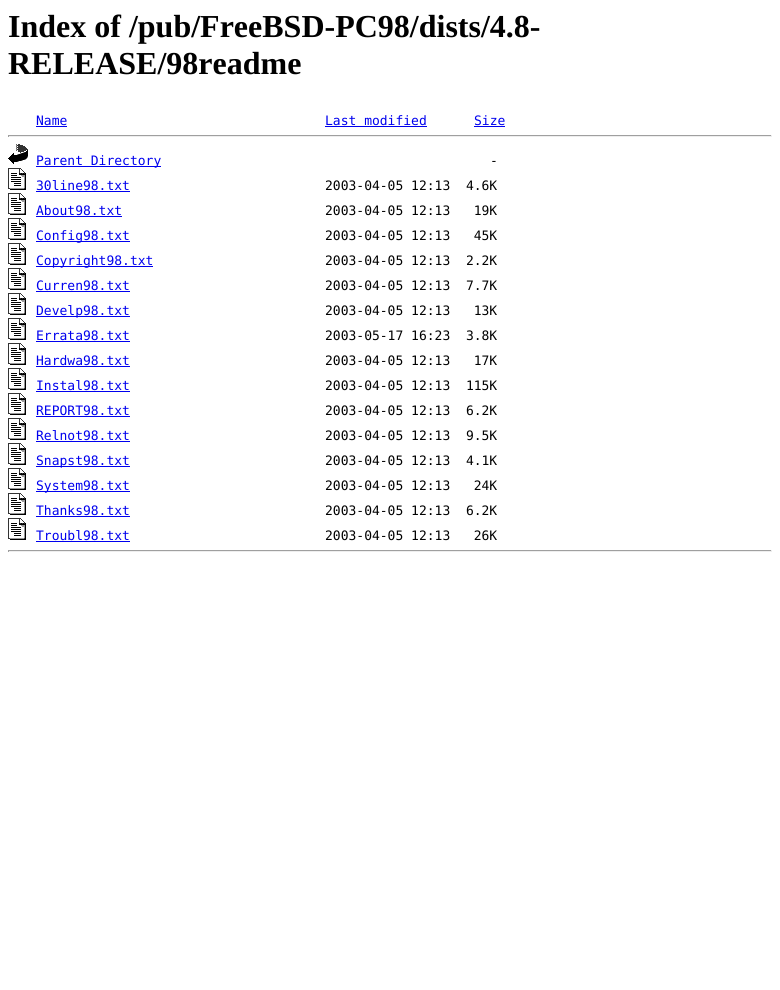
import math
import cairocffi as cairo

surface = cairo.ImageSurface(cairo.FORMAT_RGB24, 780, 990)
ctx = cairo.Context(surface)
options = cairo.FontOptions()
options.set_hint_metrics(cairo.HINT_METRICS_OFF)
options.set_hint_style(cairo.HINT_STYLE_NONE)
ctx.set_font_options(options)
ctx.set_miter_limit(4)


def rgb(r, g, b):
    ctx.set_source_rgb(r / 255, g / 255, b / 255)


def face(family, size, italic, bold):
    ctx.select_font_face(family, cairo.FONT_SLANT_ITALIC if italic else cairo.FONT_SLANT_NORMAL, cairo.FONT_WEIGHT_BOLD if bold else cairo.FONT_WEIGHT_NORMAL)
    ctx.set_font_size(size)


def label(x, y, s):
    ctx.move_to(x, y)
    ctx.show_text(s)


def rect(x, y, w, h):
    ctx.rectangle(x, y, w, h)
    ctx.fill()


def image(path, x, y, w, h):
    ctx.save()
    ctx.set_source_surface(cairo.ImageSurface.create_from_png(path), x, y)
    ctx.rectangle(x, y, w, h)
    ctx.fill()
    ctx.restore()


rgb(255, 255, 255)
ctx.paint()
face('Liberation Serif', 32, 0, 1)
rgb(0, 0, 0)
label(8, 37, 'Index of /pub/FreeBSD-PC98/dists/4.8-')
label(8, 74, 'RELEASE/98readme')
face('DejaVu Sans Mono', 13, 0, 0)
rgb(0, 0, 238)
label(36, 125, 'Name')
rect(36, 126, 31, 1)
label(325, 125, 'Last modified')
rect(325, 126, 102, 1)
label(474, 125, 'Size')
rect(474, 126, 31, 1)
rgb(159, 159, 159)
rect(8, 135, 764, 1)
rgb(238, 238, 238)
rect(771, 135, 1, 2)
rect(8, 136, 764, 1)
rgb(159, 159, 159)
rect(8, 135, 1, 2)
image('image0.png', 8, 144, 20, 20)
rgb(0, 0, 238)
rect(36, 166, 125, 1)
label(36, 165, 'Parent Directory')
rgb(0, 0, 0)
label(490, 165, '-')
image('image1.png', 8, 168, 18, 22)
rgb(0, 0, 238)
label(36, 190, '30line98.txt')
rect(36, 191, 94, 1)
rgb(0, 0, 0)
label(325, 190, '2003-04-05 12:13  4.6K')
image('image1.png', 8, 193, 18, 22)
rgb(0, 0, 238)
label(36, 215, 'About98.txt')
rect(36, 216, 86, 1)
rgb(0, 0, 0)
label(325, 215, '2003-04-05 12:13   19K')
image('image1.png', 8, 218, 18, 22)
rgb(0, 0, 238)
rect(36, 241, 94, 1)
label(36, 240, 'Config98.txt')
rgb(0, 0, 0)
label(325, 240, '2003-04-05 12:13   45K')
image('image1.png', 8, 243, 18, 22)
rgb(0, 0, 238)
rect(36, 266, 117, 1)
label(36, 265, 'Copyright98.txt')
rgb(0, 0, 0)
label(325, 265, '2003-04-05 12:13  2.2K')
image('image1.png', 8, 268, 18, 22)
rgb(0, 0, 238)
label(36, 290, 'Curren98.txt')
rect(36, 291, 94, 1)
rgb(0, 0, 0)
label(325, 290, '2003-04-05 12:13  7.7K')
image('image1.png', 8, 293, 18, 22)
rgb(0, 0, 238)
rect(36, 316, 94, 1)
label(36, 315, 'Develp98.txt')
rgb(0, 0, 0)
label(325, 315, '2003-04-05 12:13   13K')
image('image1.png', 8, 318, 18, 22)
rgb(0, 0, 238)
label(36, 340, 'Errata98.txt')
rect(36, 341, 94, 1)
rgb(0, 0, 0)
label(325, 340, '2003-05-17 16:23  3.8K')
image('image1.png', 8, 343, 18, 22)
rgb(0, 0, 238)
label(36, 365, 'Hardwa98.txt')
rect(36, 366, 94, 1)
rgb(0, 0, 0)
label(325, 365, '2003-04-05 12:13   17K')
image('image1.png', 8, 368, 18, 22)
rgb(0, 0, 238)
label(36, 390, 'Instal98.txt')
rect(36, 391, 94, 1)
rgb(0, 0, 0)
label(325, 390, '2003-04-05 12:13  115K')
image('image1.png', 8, 393, 18, 22)
rgb(0, 0, 238)
label(36, 415, 'REPORT98.txt')
rect(36, 416, 94, 1)
rgb(0, 0, 0)
label(325, 415, '2003-04-05 12:13  6.2K')
image('image1.png', 8, 418, 18, 22)
rgb(0, 0, 238)
label(36, 440, 'Relnot98.txt')
rect(36, 441, 94, 1)
rgb(0, 0, 0)
label(325, 440, '2003-04-05 12:13  9.5K')
image('image1.png', 8, 443, 18, 22)
rgb(0, 0, 238)
rect(36, 466, 94, 1)
label(36, 465, 'Snapst98.txt')
rgb(0, 0, 0)
label(325, 465, '2003-04-05 12:13  4.1K')
image('image1.png', 8, 468, 18, 22)
rgb(0, 0, 238)
rect(36, 491, 94, 1)
label(36, 490, 'System98.txt')
rgb(0, 0, 0)
label(325, 490, '2003-04-05 12:13   24K')
image('image1.png', 8, 493, 18, 22)
rgb(0, 0, 238)
label(36, 515, 'Thanks98.txt')
rect(36, 516, 94, 1)
rgb(0, 0, 0)
label(325, 515, '2003-04-05 12:13  6.2K')
image('image1.png', 8, 518, 18, 22)
rgb(0, 0, 238)
label(36, 540, 'Troubl98.txt')
rect(36, 541, 94, 1)
rgb(0, 0, 0)
label(325, 540, '2003-04-05 12:13   26K')
rgb(159, 159, 159)
rect(8, 550, 764, 1)
rgb(238, 238, 238)
rect(771, 550, 1, 2)
rect(8, 551, 764, 1)
rgb(159, 159, 159)
rect(8, 550, 1, 2)
surface.write_to_png('render.png')
